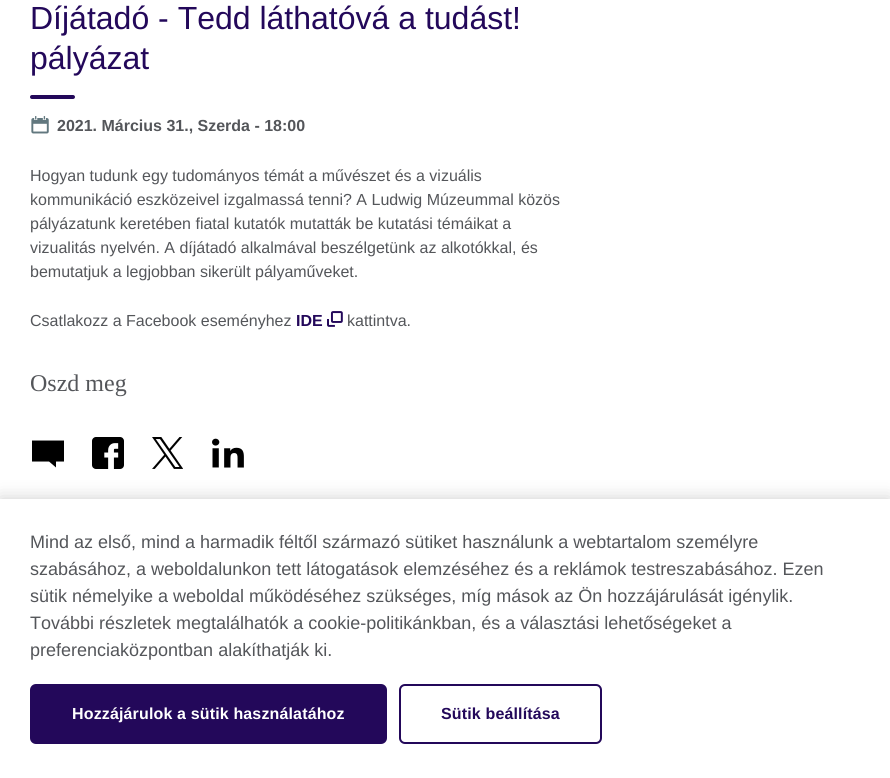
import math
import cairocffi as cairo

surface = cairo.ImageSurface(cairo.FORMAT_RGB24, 890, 778)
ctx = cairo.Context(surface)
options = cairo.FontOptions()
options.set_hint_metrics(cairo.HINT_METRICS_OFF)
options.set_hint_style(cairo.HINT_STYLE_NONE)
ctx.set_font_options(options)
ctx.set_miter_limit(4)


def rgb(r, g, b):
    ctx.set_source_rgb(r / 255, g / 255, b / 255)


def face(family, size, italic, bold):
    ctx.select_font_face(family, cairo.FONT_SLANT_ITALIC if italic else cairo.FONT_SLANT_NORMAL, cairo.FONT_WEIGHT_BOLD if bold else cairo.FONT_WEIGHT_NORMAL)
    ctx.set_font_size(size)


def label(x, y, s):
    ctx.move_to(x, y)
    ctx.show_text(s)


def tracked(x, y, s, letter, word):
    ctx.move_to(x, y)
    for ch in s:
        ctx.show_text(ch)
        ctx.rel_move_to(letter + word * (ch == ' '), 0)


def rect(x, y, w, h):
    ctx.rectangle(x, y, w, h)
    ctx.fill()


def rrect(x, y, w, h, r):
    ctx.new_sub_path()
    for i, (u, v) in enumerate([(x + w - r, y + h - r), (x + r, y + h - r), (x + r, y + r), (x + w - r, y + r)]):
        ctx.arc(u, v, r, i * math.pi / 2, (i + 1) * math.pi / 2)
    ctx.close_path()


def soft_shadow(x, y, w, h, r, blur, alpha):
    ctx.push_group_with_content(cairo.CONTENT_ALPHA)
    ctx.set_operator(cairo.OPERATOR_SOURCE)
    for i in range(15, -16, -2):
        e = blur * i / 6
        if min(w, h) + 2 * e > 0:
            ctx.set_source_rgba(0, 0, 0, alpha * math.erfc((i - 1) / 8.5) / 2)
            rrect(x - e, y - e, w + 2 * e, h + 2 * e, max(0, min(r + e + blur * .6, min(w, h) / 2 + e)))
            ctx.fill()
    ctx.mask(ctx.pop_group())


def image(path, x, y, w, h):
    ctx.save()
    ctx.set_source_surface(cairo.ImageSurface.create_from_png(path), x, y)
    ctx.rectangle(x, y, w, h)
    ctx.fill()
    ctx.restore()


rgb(255, 255, 255)
ctx.paint()
face('Liberation Sans', 32, 0, 0)
rgb(35, 8, 90)
label(30, 29, 'Díjátadó - Tedd láthatóvá a tudást!')
label(30, 69, 'pályázat')
rrect(30, 95, 45, 4, 2)
ctx.fill()
image('image0.png', 31, 116, 18, 18)
face('Liberation Sans', 16, 0, 1)
rgb(84, 86, 90)
label(57, 131, '2021. Március 31., Szerda - 18:00')
face('Liberation Sans', 16, 0, 0)
label(30, 181, 'Hogyan tudunk egy tudományos témát a művészet és a vizuális')
label(30, 205, 'kommunikáció eszközeivel izgalmassá tenni? A Ludwig Múzeummal közös')
label(30, 229, 'pályázatunk keretében fiatal kutatók mutatták be kutatási témáikat a')
label(30, 253, 'vizualitás nyelvén. A díjátadó alkalmával beszélgetünk az alkotókkal, és')
label(30, 277, 'bemutatjuk a legjobban sikerült pályaműveket.')
label(30, 326, 'Csatlakozz a Facebook eseményhez')
face('Liberation Sans', 16, 0, 1)
rgb(35, 8, 90)
label(296, 326, 'IDE')
image('image1.png', 327, 311, 16, 16)
face('Liberation Sans', 16, 0, 0)
rgb(84, 86, 90)
label(347, 326, 'kattintva.')
face('Liberation Serif', 24, 0, 0)
label(30, 391, 'Oszd meg')
rgb(0, 0, 0)
ctx.new_path()
ctx.move_to(32, 440.5)
ctx.line_to(64, 440.5)
ctx.line_to(64, 461)
ctx.line_to(64, 461.5)
ctx.line_to(56, 461.5)
ctx.line_to(56, 467.5)
ctx.line_to(49, 461.5)
ctx.line_to(32, 461.5)
ctx.line_to(32, 461)
ctx.close_path()
ctx.fill()
image('image2.png', 92, 437, 32, 32)
image('image3.png', 152, 437, 31, 32)
image('image4.png', 212, 438, 32, 30)
rgb(0, 0, 0)
soft_shadow(0, 499, 890, 279, 0, 9, 0.2)
rgb(255, 255, 255)
rect(0, 499, 890, 279)
face('Liberation Sans', 18, 0, 0)
rgb(84, 86, 90)
label(30, 548, 'Mind az első, mind a harmadik féltől származó sütiket használunk a webtartalom személyre')
label(30, 575, 'szabásához, a weboldalunkon tett látogatások elemzéséhez és a reklámok testreszabásához. Ezen')
label(30, 602, 'sütik némelyike a weboldal működéséhez szükséges, míg mások az Ön hozzájárulását igénylik.')
label(30, 629, 'További részletek megtalálhatók a cookie-politikánkban, és a választási lehetőségeket a')
label(30, 656, 'preferenciaközpontban alakíthatják ki.')
rgb(35, 8, 90)
rrect(31, 685, 355, 58, 5)
ctx.fill_preserve()
ctx.stroke()
face('Liberation Sans', 16, 0, 1)
rgb(255, 255, 255)
tracked(72, 719, 'Hozzájárulok a sütik használatához', 0.15, 0)
rrect(400, 685, 201, 58, 5)
rgb(35, 8, 90)
ctx.stroke()
tracked(441, 719, 'Sütik beállítása', 0.15, 0)
surface.write_to_png('render.png')
